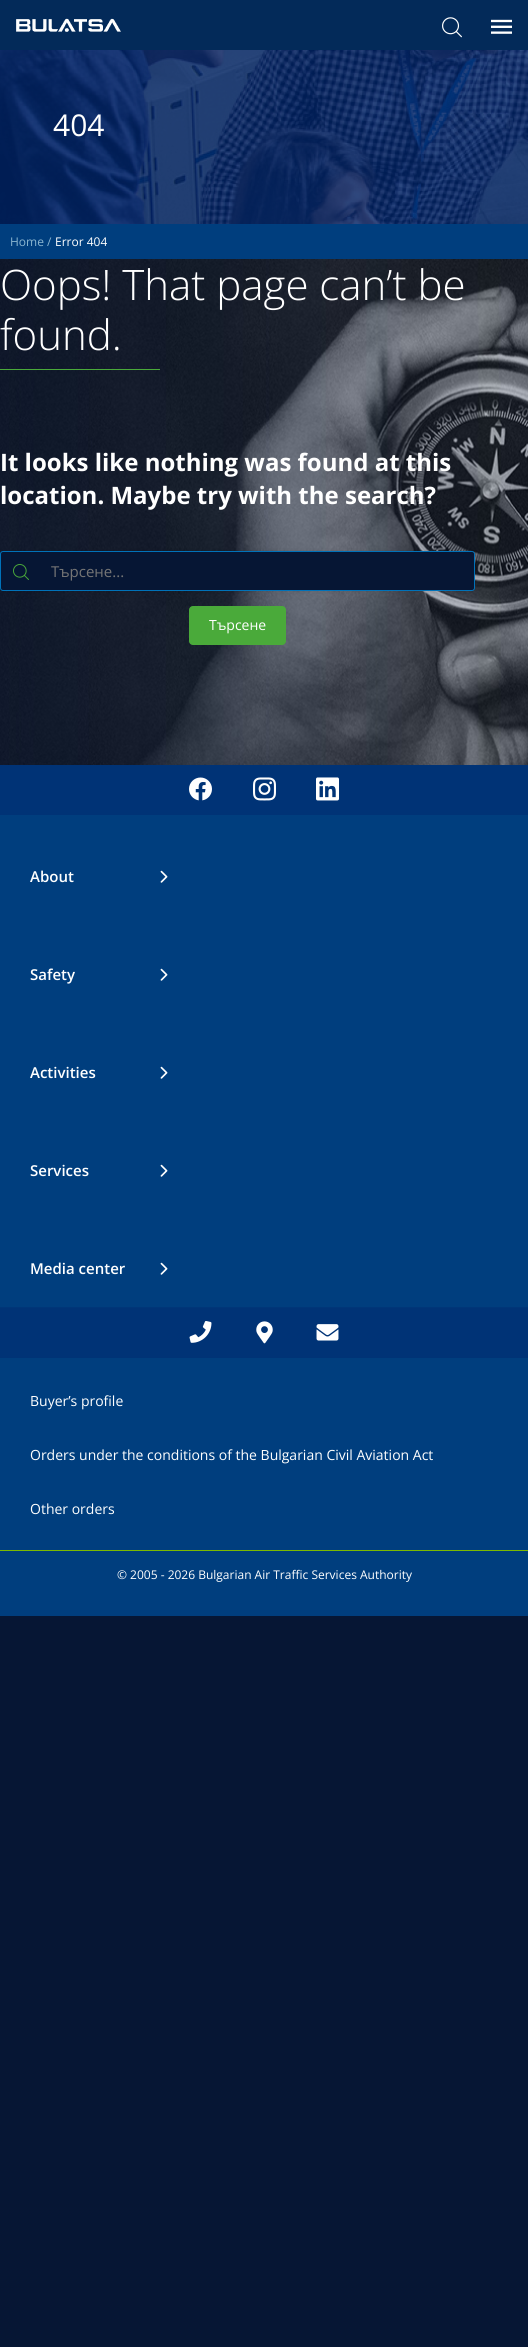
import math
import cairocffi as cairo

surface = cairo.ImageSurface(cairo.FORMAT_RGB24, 528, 2347)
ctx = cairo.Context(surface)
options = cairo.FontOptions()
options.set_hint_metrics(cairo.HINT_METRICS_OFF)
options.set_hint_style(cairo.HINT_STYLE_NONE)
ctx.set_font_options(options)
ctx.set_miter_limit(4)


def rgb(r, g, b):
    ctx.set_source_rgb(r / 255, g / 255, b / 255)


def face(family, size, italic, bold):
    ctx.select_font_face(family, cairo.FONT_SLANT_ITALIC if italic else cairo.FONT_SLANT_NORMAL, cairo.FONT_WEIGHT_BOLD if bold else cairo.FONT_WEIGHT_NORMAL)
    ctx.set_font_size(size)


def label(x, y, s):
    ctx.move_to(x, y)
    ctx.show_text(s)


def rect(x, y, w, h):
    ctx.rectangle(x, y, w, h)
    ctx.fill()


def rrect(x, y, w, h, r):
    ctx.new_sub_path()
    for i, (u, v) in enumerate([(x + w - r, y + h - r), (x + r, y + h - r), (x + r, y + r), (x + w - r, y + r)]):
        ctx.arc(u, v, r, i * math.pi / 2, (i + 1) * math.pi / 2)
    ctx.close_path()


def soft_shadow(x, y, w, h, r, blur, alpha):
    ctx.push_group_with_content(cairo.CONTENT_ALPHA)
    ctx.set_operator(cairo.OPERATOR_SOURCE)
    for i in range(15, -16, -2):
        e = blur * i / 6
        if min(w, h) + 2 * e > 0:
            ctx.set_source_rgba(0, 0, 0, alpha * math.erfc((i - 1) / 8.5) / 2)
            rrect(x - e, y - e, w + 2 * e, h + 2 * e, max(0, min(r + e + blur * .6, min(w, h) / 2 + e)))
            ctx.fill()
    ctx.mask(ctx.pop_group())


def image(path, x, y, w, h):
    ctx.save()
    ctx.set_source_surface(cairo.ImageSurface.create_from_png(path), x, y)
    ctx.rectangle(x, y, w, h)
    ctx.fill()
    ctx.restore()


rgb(6, 22, 52)
ctx.paint()
rgb(3, 42, 89)
rect(0, 0, 528, 50)
image('image0.png', 16, 18, 105, 14)
image('image1.png', 442, 17, 20, 21)
image('image2.png', 491, 19, 21, 15)
image('image3.png', 0, 50, 528, 174)
face('Open Sans', 30, 0, 0)
rgb(255, 255, 255)
label(53, 136, '404')
rgb(0, 62, 126)
rect(0, 224, 528, 35)
face('Open Sans', 12, 0, 0)
rgb(138, 181, 208)
label(10, 246, 'Home /')
rgb(255, 255, 255)
label(55, 246, 'Error 404')
image('image4.png', 0, 259, 528, 506)
face('Open Sans Light', 42, 0, 0)
label(0, 300, 'Oops! That page can’t be')
label(0, 350, 'found.')
rgb(74, 170, 58)
rect(0, 369, 160, 1)
face('Open Sans', 24, 0, 1)
rgb(255, 255, 255)
label(0, 471, 'It looks like nothing was found at this')
label(0, 504, 'location. Maybe try with the search?')
rgb(0, 0, 0)
soft_shadow(0, 551, 475, 40, 3, 2.5, 0.1)
rgb(6, 22, 52)
rrect(0.5, 551.5, 474, 39, 2.5)
ctx.fill_preserve()
rgb(0, 114, 185)
ctx.set_line_width(1)
ctx.stroke()
image('image5.png', 13, 564, 16, 16)
face('Open Sans', 15, 0, 0)
rgb(117, 117, 117)
label(51, 577, 'Търсене...')
rgb(74, 170, 58)
rrect(189, 606, 97, 39, 4)
ctx.fill()
face('Open Sans', 14, 0, 0)
rgb(255, 255, 255)
label(209, 630, 'Търсене')
rgb(0, 51, 118)
rect(0, 765, 528, 50)
image('image6.png', 189, 777, 23, 24)
image('image7.png', 253, 777, 23, 24)
image('image8.png', 316, 777, 23, 24)
rgb(0, 62, 126)
rect(0, 815, 528, 492)
rgb(0, 54, 120)
rect(0, 1307, 528, 1)
face('Open Sans SemiBold', 15, 0, 0)
rgb(255, 255, 255)
label(30, 882, 'About')
image('image9.png', 160, 870, 8, 13)
label(30, 980, 'Safety')
image('image9.png', 160, 968, 8, 13)
label(30, 1078, 'Activities')
image('image9.png', 160, 1066, 8, 13)
label(30, 1176, 'Services')
image('image9.png', 160, 1164, 8, 13)
label(30, 1274, 'Media center')
image('image9.png', 160, 1262, 8, 13)
rgb(0, 51, 118)
rect(0, 1308, 528, 50)
image('image10.png', 189, 1321, 23, 22)
image('image11.png', 256, 1321, 17, 23)
image('image12.png', 316, 1324, 23, 17)
rgb(0, 62, 126)
rect(0, 1358, 528, 192)
rgb(125, 186, 0)
rect(0, 1550, 528, 1)
face('Open Sans', 14, 0, 0)
rgb(255, 255, 255)
label(30, 1406, 'Buyer’s profile')
label(30, 1460, 'Orders under the conditions of the Bulgarian Civil Aviation Act')
label(30, 1514, 'Other orders')
rgb(0, 62, 126)
rect(0, 1551, 528, 65)
face('Open Sans', 12, 0, 0)
rgb(255, 255, 255)
label(117, 1579, '© 2005 - 2026 Bulgarian Air Traffic Services Authority')
surface.write_to_png('render.png')
